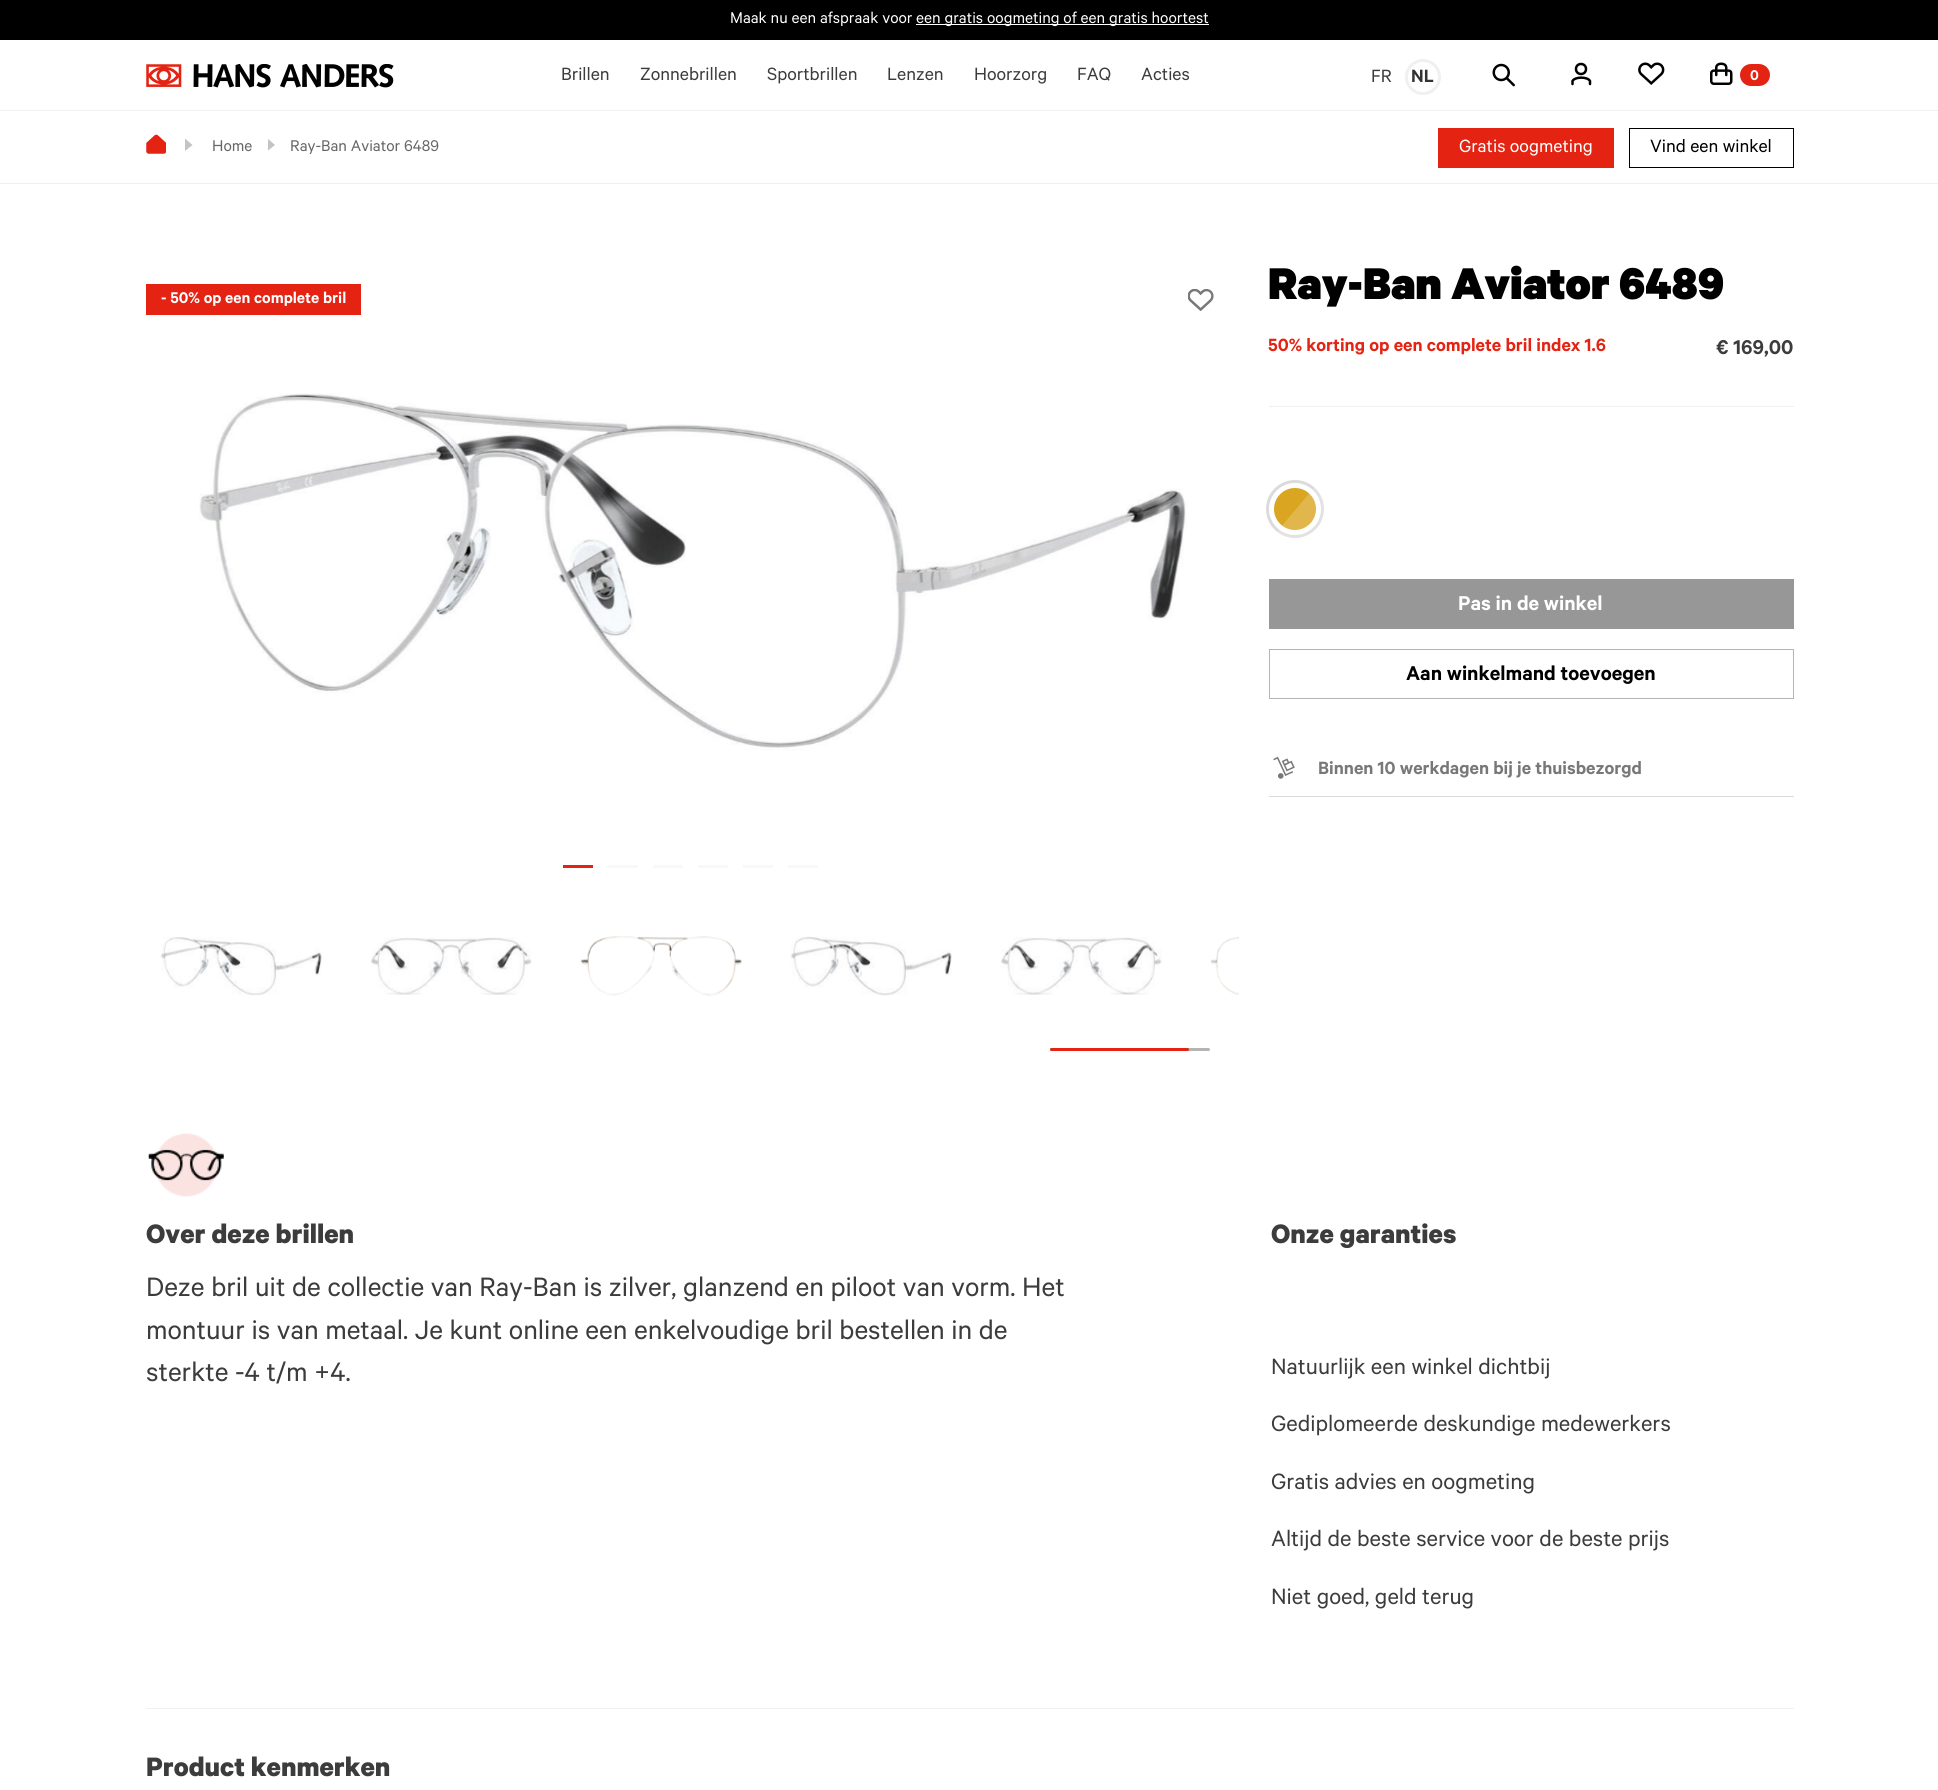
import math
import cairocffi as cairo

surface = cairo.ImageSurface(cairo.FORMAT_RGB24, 1938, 1790)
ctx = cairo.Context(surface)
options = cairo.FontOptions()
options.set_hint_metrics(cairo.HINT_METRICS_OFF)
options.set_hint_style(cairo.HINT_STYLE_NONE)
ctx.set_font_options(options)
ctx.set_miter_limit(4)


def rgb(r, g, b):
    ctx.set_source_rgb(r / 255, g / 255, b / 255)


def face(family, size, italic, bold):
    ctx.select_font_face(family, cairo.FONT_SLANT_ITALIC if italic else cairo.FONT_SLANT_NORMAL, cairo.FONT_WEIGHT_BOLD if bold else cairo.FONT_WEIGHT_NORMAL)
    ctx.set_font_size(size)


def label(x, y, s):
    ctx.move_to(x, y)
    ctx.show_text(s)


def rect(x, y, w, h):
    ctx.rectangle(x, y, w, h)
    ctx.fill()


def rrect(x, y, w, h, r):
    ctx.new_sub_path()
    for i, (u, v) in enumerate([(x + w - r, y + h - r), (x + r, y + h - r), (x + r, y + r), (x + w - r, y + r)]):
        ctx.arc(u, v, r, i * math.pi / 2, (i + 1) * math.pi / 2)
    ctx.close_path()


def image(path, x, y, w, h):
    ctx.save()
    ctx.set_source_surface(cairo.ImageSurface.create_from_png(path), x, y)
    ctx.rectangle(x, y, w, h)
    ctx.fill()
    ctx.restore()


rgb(255, 255, 255)
ctx.paint()
rgb(0, 0, 0)
rect(0, 0, 1938, 40)
face('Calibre', 17.5, 0, 0)
rgb(255, 255, 255)
label(730, 23, 'Maak nu een afspraak voor')
rect(916, 24, 293, 1)
label(916, 23, 'een gratis oogmeting of een gratis hoortest')
rgb(240, 240, 240)
rect(0, 110, 1938, 1)
image('image0.png', 146, 64, 248, 24)
face('Calibre', 20, 0, 0)
rgb(60, 60, 60)
label(561, 80, 'Brillen')
label(640, 80, 'Zonnebrillen')
label(767, 80, 'Sportbrillen')
label(887, 80, 'Lenzen')
label(974, 80, 'Hoorzorg')
label(1077, 80, 'FAQ')
label(1141, 80, 'Acties')
label(1371, 82, 'FR')
ctx.new_path()
ctx.arc(1423, 77, 16.5, 0, 2 * math.pi)
rgb(240, 240, 240)
ctx.set_line_width(3)
ctx.stroke()
face('Calibre SemiBold', 20, 0, 0)
rgb(51, 51, 51)
label(1411, 82, 'NL')
image('image1.png', 1492, 63, 23, 24)
ctx.arc(1581, 69, 5, 0, 2 * math.pi)
rgb(0, 0, 0)
ctx.set_line_width(2.5)
ctx.stroke()
ctx.new_path()
ctx.move_to(1590, 84)
ctx.line_to(1590, 81)
ctx.curve_to(1587.5, 76.5, 1575, 76.5, 1572.5, 81)
ctx.line_to(1572.5, 84)
ctx.set_line_cap(cairo.LINE_CAP_ROUND)
ctx.stroke()
image('image2.png', 1638, 62, 27, 23)
image('image3.png', 1710, 62, 23, 23)
rgb(228, 35, 19)
rrect(1740, 64, 30, 22, 11)
ctx.fill()
face('Calibre SemiBold', 16, 0, 0)
rgb(255, 255, 255)
label(1750, 80, '0')
rgb(240, 240, 240)
rect(0, 183, 1938, 1)
image('image4.png', 146, 134, 20, 20)
rgb(196, 196, 196)
ctx.new_path()
ctx.move_to(185, 151)
ctx.line_to(192.5, 145)
ctx.line_to(185, 138.5)
ctx.close_path()
ctx.fill()
face('Calibre', 17.5, 0, 0)
rgb(102, 102, 102)
label(212, 151, 'Home')
ctx.save()
ctx.rectangle(268, 139, 7, 12)
ctx.clip()
rgb(196, 196, 196)
ctx.new_path()
ctx.move_to(267.5, 151)
ctx.line_to(275, 145)
ctx.line_to(267.5, 138.5)
ctx.close_path()
ctx.fill()
ctx.restore()
label(290, 151, 'Ray-Ban Aviator 6489')
rgb(228, 35, 19)
rect(1438, 128, 176, 40)
face('Calibre', 20, 0, 0)
rgb(255, 255, 255)
label(1459, 152, 'Gratis oogmeting')
ctx.rectangle(1629.5, 128.5, 164, 39)
rgb(0, 0, 0)
ctx.set_line_width(1)
ctx.set_line_cap(cairo.LINE_CAP_BUTT)
ctx.stroke()
label(1650, 152, 'Vind een winkel')
rgb(228, 35, 19)
rect(146, 284, 215, 31)
face('Calibre SemiBold', 17.5, 0, 0)
rgb(255, 255, 255)
label(161, 303, '- 50% op een complete bril')
image('image5.png', 1188, 289, 26, 22)
image('image6.png', 199, 393, 988, 358)
rgb(228, 35, 19)
rect(563, 865, 30, 3)
rgb(248, 248, 248)
rect(608, 865, 30, 3)
rect(653, 865, 30, 3)
rect(698, 865, 30, 3)
rect(743, 865, 30, 3)
rect(788, 865, 30, 3)
image('image7.png', 160, 937, 162, 59)
image('image8.png', 370, 937, 162, 58)
image('image9.png', 580, 936, 162, 60)
image('image10.png', 790, 936, 162, 60)
image('image11.png', 1000, 937, 162, 58)
image('image12.png', 1210, 937, 29, 58)
rgb(180, 180, 180)
rrect(1050, 1048, 160, 3, 1.5)
ctx.fill()
rgb(228, 35, 19)
rrect(1050, 1048, 139, 3, 1.5)
ctx.fill()
face('Calibre Black', 50, 0, 0)
rgb(0, 0, 0)
label(1268, 299, 'Ray-Ban Aviator 6489')
rgb(240, 240, 240)
rect(1269, 406, 525, 1)
face('Calibre SemiBold', 20, 0, 0)
rgb(228, 35, 19)
label(1268, 351, '50% korting op een complete bril index 1.6')
face('Calibre SemiBold', 22.5, 0, 0)
rgb(60, 60, 60)
label(1716, 354, '€ 169,00')
rgb(218, 165, 32)
ctx.new_path()
ctx.arc(1295, 509, 21, 0, 2 * math.pi)
ctx.fill()
ctx.arc(1295, 509, 27.5, 0, 2 * math.pi)
rgb(219, 219, 219)
ctx.set_line_width(3)
ctx.stroke()
ctx.set_source_rgba(1, 1, 1, 0.2)
ctx.new_path()
ctx.move_to(1270, 540)
ctx.line_to(1318, 483)
ctx.line_to(1342, 503)
ctx.line_to(1293, 561)
ctx.close_path()
ctx.fill()
rgb(219, 219, 219)
rect(1269, 796, 525, 1)
rgb(151, 151, 151)
rect(1269, 579, 525, 50)
rgb(255, 255, 255)
label(1458, 610, 'Pas in de winkel')
ctx.rectangle(1269.5, 649.5, 524, 49)
rgb(180, 180, 180)
ctx.set_line_width(1)
ctx.stroke()
rgb(0, 0, 0)
label(1406, 680, 'Aan winkelmand toevoegen')
image('image13.png', 1273, 756, 22, 23)
face('Calibre SemiBold', 20, 0, 0)
rgb(120, 120, 120)
label(1318, 774, 'Binnen 10 werkdagen bij je thuisbezorgd')
rgb(240, 240, 240)
rect(146, 1708, 1648, 1)
image('image14.png', 148, 1133, 76, 64)
face('Calibre', 30, 0, 1)
rgb(60, 60, 60)
label(146, 1243, 'Over deze brillen')
face('Calibre', 30, 0, 0)
label(146, 1296, 'Deze bril uit de collectie van Ray-Ban is zilver, glanzend en piloot van vorm. Het')
label(146, 1339, 'montuur is van metaal. Je kunt online een enkelvoudige bril bestellen in de')
label(146, 1381, 'sterkte -4 t/m +4.')
face('Calibre', 30, 0, 1)
label(1271, 1243, 'Onze garanties')
face('Calibre', 25, 0, 0)
label(1271, 1374, 'Natuurlijk een winkel dichtbij')
label(1271, 1431, 'Gediplomeerde deskundige medewerkers')
label(1271, 1489, 'Gratis advies en oogmeting')
label(1271, 1546, 'Altijd de beste service voor de beste prijs')
label(1271, 1604, 'Niet goed, geld terug')
face('Calibre', 30, 0, 1)
label(146, 1776, 'Product kenmerken')
surface.write_to_png('render.png')
